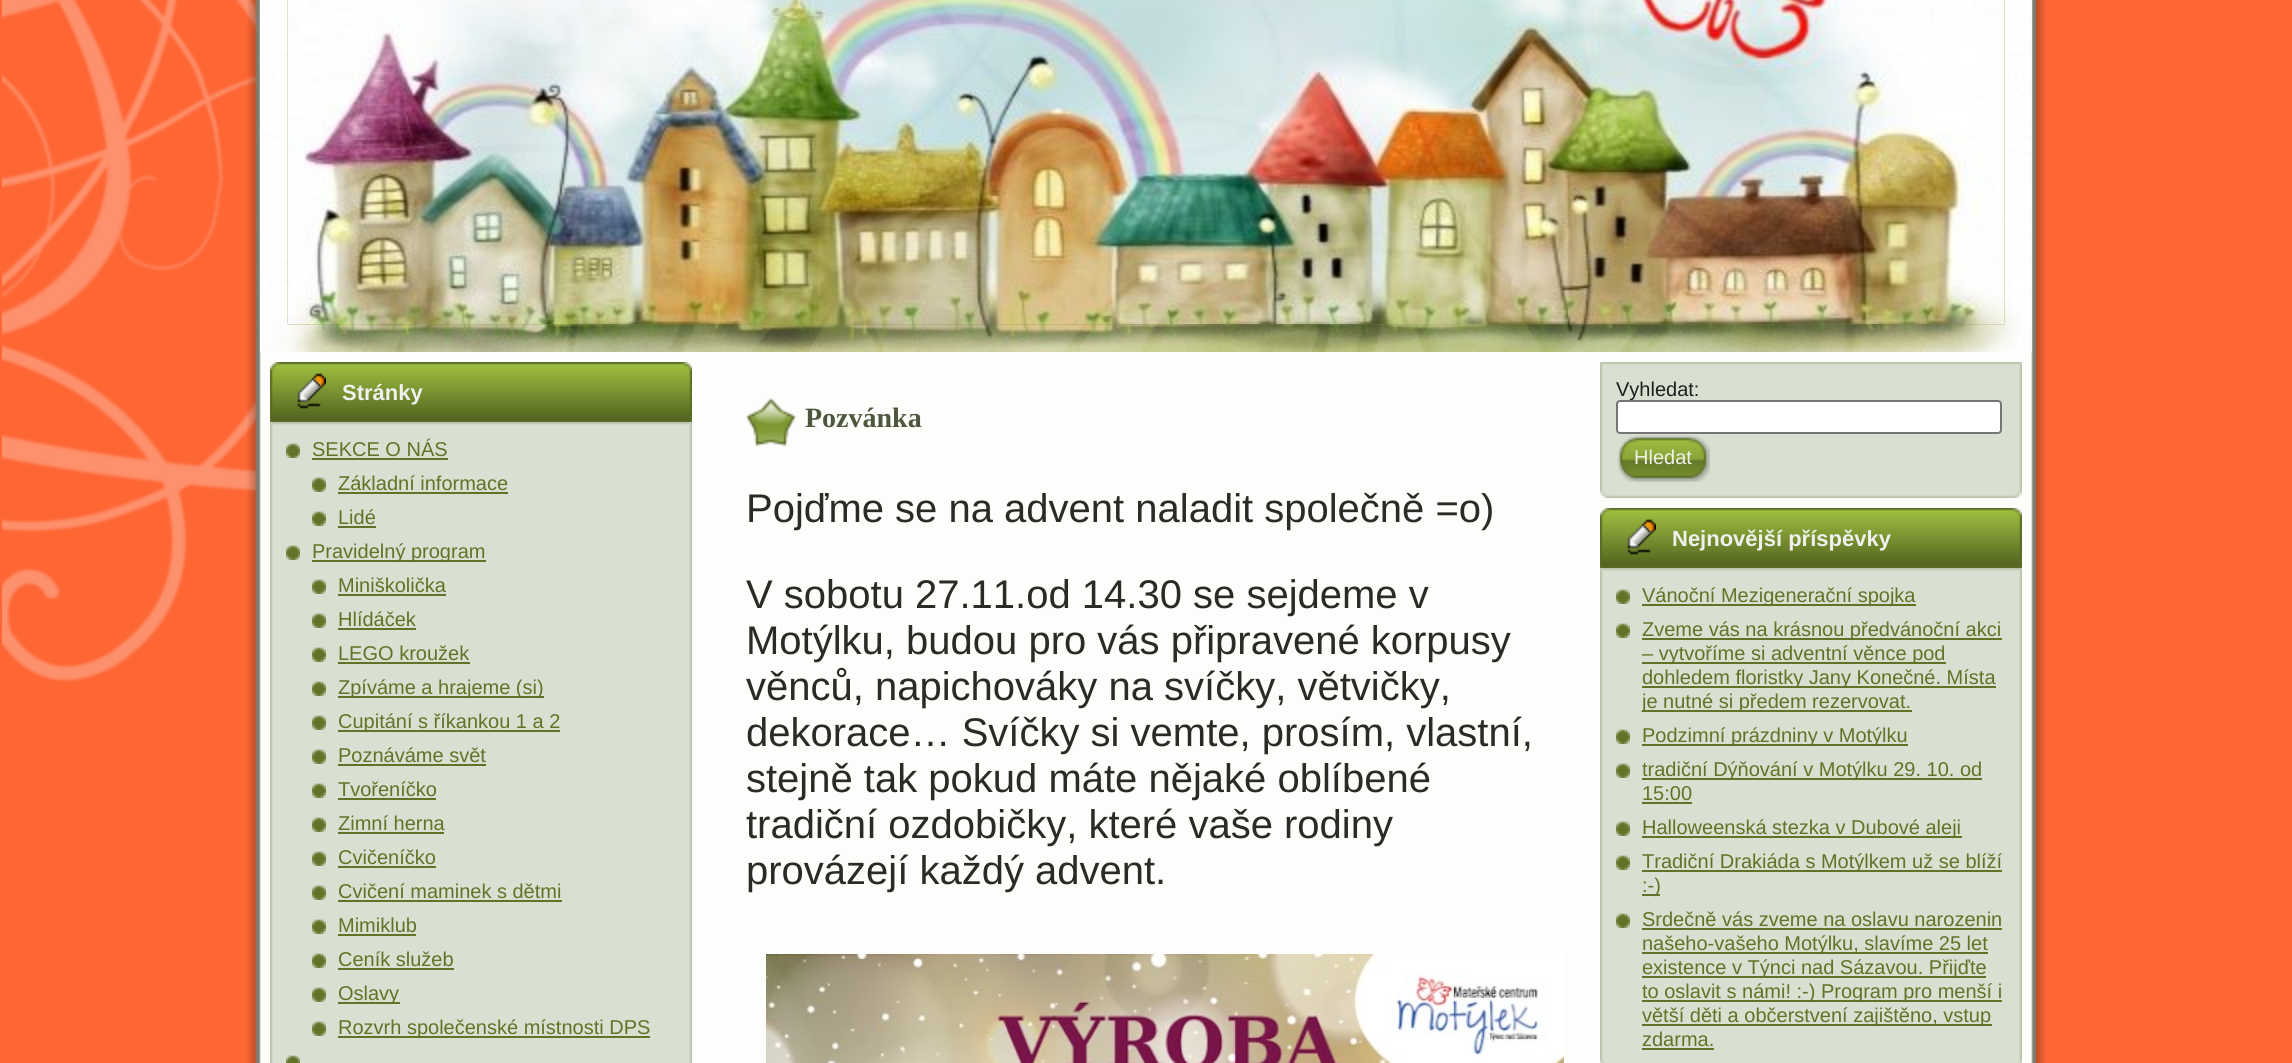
import math
import cairocffi as cairo

surface = cairo.ImageSurface(cairo.FORMAT_RGB24, 2292, 1063)
ctx = cairo.Context(surface)
options = cairo.FontOptions()
options.set_hint_metrics(cairo.HINT_METRICS_OFF)
options.set_hint_style(cairo.HINT_STYLE_NONE)
ctx.set_font_options(options)
ctx.set_miter_limit(4)


def rgb(r, g, b):
    ctx.set_source_rgb(r / 255, g / 255, b / 255)


def face(family, size, italic, bold):
    ctx.select_font_face(family, cairo.FONT_SLANT_ITALIC if italic else cairo.FONT_SLANT_NORMAL, cairo.FONT_WEIGHT_BOLD if bold else cairo.FONT_WEIGHT_NORMAL)
    ctx.set_font_size(size)


def label(x, y, s):
    ctx.move_to(x, y)
    ctx.show_text(s)


def rect(x, y, w, h):
    ctx.rectangle(x, y, w, h)
    ctx.fill()


def rrect(x, y, w, h, r):
    ctx.new_sub_path()
    for i, (u, v) in enumerate([(x + w - r, y + h - r), (x + r, y + h - r), (x + r, y + r), (x + w - r, y + r)]):
        ctx.arc(u, v, r, i * math.pi / 2, (i + 1) * math.pi / 2)
    ctx.close_path()


def image(path, x, y, w, h):
    ctx.save()
    ctx.set_source_surface(cairo.ImageSurface.create_from_png(path), x, y)
    ctx.rectangle(x, y, w, h)
    ctx.fill()
    ctx.restore()


rgb(254, 102, 52)
ctx.paint()
image('image0.png', 2, 0, 255, 682)
image('image1.png', 247, 0, 71, 1063)
rgb(253, 253, 252)
rect(318, 352, 1656, 711)
image('image2.png', 1974, 0, 72, 1063)
image('image3.png', 260, 0, 1772, 352)
image('image4.png', 288, 0, 1716, 324)
image('image5.png', 270, 362, 412, 60)
image('image6.png', 682, 362, 10, 60)
image('image7.png', 297, 373, 29, 36)
face('Liberation Sans', 22, 0, 1)
rgb(240, 240, 239)
label(342, 400, 'Stránky')
image('image8.png', 270, 422, 10, 10)
image('image9.png', 280, 422, 402, 10)
image('image10.png', 682, 422, 10, 10)
image('image11.png', 270, 432, 10, 631)
rgb(217, 223, 209)
rect(280, 432, 402, 631)
image('image12.png', 682, 432, 10, 631)
image('image13.png', 286, 443, 14, 15)
face('Liberation Sans', 20, 0, 0)
rgb(96, 115, 38)
label(312, 456, 'SEKCE O NÁS')
rect(312, 458, 136, 2)
image('image13.png', 312, 477, 14, 15)
label(338, 490, 'Základní informace')
rect(338, 492, 170, 2)
image('image13.png', 312, 511, 14, 15)
label(338, 524, 'Lidé')
rect(338, 526, 38, 2)
image('image13.png', 286, 545, 14, 15)
rect(312, 560, 174, 2)
label(312, 558, 'Pravidelný program')
image('image13.png', 312, 579, 14, 15)
label(338, 592, 'Miniškolička')
rect(338, 594, 108, 2)
image('image13.png', 312, 613, 14, 15)
label(338, 626, 'Hlídáček')
rect(338, 628, 78, 2)
image('image13.png', 312, 647, 14, 15)
label(338, 660, 'LEGO kroužek')
rect(338, 662, 132, 2)
image('image13.png', 312, 681, 14, 15)
rect(338, 696, 206, 2)
label(338, 694, 'Zpíváme a hrajeme (si)')
image('image13.png', 312, 715, 14, 15)
rect(338, 730, 222, 2)
label(338, 728, 'Cupitání s říkankou 1 a 2')
image('image13.png', 312, 749, 14, 15)
label(338, 762, 'Poznáváme svět')
rect(338, 764, 148, 2)
image('image13.png', 312, 783, 14, 15)
label(338, 796, 'Tvořeníčko')
rect(338, 798, 98, 2)
image('image13.png', 312, 817, 14, 15)
label(338, 830, 'Zimní herna')
rect(338, 832, 106, 2)
image('image13.png', 312, 851, 14, 15)
label(338, 864, 'Cvičeníčko')
rect(338, 866, 98, 2)
image('image13.png', 312, 885, 14, 15)
label(338, 898, 'Cvičení maminek s dětmi')
rect(338, 900, 224, 2)
image('image13.png', 312, 919, 14, 15)
label(338, 932, 'Mimiklub')
rect(338, 934, 78, 2)
image('image13.png', 312, 953, 14, 15)
label(338, 966, 'Ceník služeb')
rect(338, 968, 116, 2)
image('image13.png', 312, 987, 14, 15)
rect(338, 1002, 62, 2)
label(338, 1000, 'Oslavy')
image('image13.png', 312, 1021, 14, 15)
rect(338, 1036, 312, 2)
label(338, 1034, 'Rozvrh společenské místnosti DPS')
image('image14.png', 286, 1055, 14, 8)
image('image15.png', 746, 397, 51, 49)
face('Liberation Serif', 28, 0, 1)
rgb(77, 87, 61)
label(805, 427, 'Pozvánka')
face('Liberation Sans', 40, 0, 0)
rgb(42, 43, 39)
label(746, 522, 'Pojďme se na advent naladit společně =o)')
label(746, 608, 'V sobotu 27.11.od 14.30 se sejdeme v')
label(746, 654, 'Motýlku, budou pro vás připravené korpusy')
label(746, 700, 'věnců, napichováky na svíčky, větvičky,')
label(746, 746, 'dekorace… Svíčky si vemte, prosím, vlastní,')
label(746, 792, 'stejně tak pokud máte nějaké oblíbené')
label(746, 838, 'tradiční ozdobičky, které vaše rodiny')
label(746, 884, 'provázejí každý advent.')
image('image16.png', 766, 954, 798, 109)
image('image8.png', 1600, 362, 10, 10)
image('image9.png', 1610, 362, 402, 10)
image('image10.png', 2012, 362, 10, 10)
image('image17.png', 1600, 372, 10, 116)
rgb(217, 223, 209)
rect(1610, 372, 402, 116)
image('image18.png', 2012, 372, 10, 116)
face('Liberation Sans', 20, 0, 0)
rgb(31, 32, 29)
label(1616, 396, 'Vyhledat:')
rgb(255, 255, 255)
rrect(1617, 401, 384, 32, 3)
ctx.fill_preserve()
rgb(118, 118, 118)
ctx.stroke()
image('image19.png', 1617, 435, 67, 47)
image('image20.png', 1684, 435, 26, 47)
rgb(240, 240, 239)
label(1634, 464, 'Hledat')
image('image21.png', 1600, 488, 10, 10)
image('image22.png', 1610, 488, 402, 10)
image('image23.png', 2012, 488, 10, 10)
image('image5.png', 1600, 508, 412, 60)
image('image6.png', 2012, 508, 10, 60)
image('image7.png', 1627, 519, 29, 36)
face('Liberation Sans', 22, 0, 1)
label(1672, 546, 'Nejnovější příspěvky')
image('image8.png', 1600, 568, 10, 10)
image('image9.png', 1610, 568, 402, 10)
image('image10.png', 2012, 568, 10, 10)
image('image24.png', 1600, 578, 10, 480)
rgb(217, 223, 209)
rect(1610, 578, 402, 485)
image('image25.png', 2012, 578, 10, 480)
image('image13.png', 1616, 589, 14, 15)
rgb(96, 115, 38)
rect(1642, 604, 274, 2)
face('Liberation Sans', 20, 0, 0)
label(1642, 602, 'Vánoční Mezigenerační spojka')
image('image13.png', 1616, 623, 14, 15)
rect(1642, 638, 360, 2)
label(1642, 636, 'Zveme vás na krásnou předvánoční akci')
rect(1642, 662, 304, 2)
label(1642, 660, '– vytvoříme si adventní věnce pod')
rect(1642, 686, 354, 2)
label(1642, 684, 'dohledem floristky Jany Konečné. Místa')
rect(1642, 710, 270, 2)
label(1642, 708, 'je nutné si předem rezervovat.')
image('image13.png', 1616, 729, 14, 15)
rect(1642, 744, 266, 2)
label(1642, 742, 'Podzimní prázdniny v Motýlku')
image('image13.png', 1616, 763, 14, 15)
rect(1642, 778, 340, 2)
label(1642, 776, 'tradiční Dýňování v Motýlku 29. 10. od')
label(1642, 800, '15:00')
rect(1642, 802, 50, 2)
image('image13.png', 1616, 821, 14, 15)
rect(1642, 836, 320, 2)
label(1642, 834, 'Halloweenská stezka v Dubové aleji')
image('image13.png', 1616, 855, 14, 15)
rect(1642, 870, 360, 2)
label(1642, 868, 'Tradiční Drakiáda s Motýlkem už se blíží')
rect(1642, 894, 18, 2)
label(1642, 892, ':-)')
image('image13.png', 1616, 913, 14, 15)
label(1642, 926, 'Srdečně vás zveme na oslavu narozenin')
rect(1642, 928, 360, 2)
rect(1642, 952, 346, 2)
label(1642, 950, 'našeho-vašeho Motýlku, slavíme 25 let')
rect(1642, 976, 344, 2)
label(1642, 974, 'existence v Týnci nad Sázavou. Přijďte')
rect(1642, 1000, 360, 2)
label(1642, 998, 'to oslavit s námi! :-) Program pro menší i')
rect(1642, 1024, 350, 2)
label(1642, 1022, 'větší děti a občerstvení zajištěno, vstup')
label(1642, 1046, 'zdarma.')
rect(1642, 1048, 72, 2)
image('image26.png', 1600, 1058, 10, 5)
image('image27.png', 2012, 1058, 10, 5)
surface.write_to_png('render.png')
